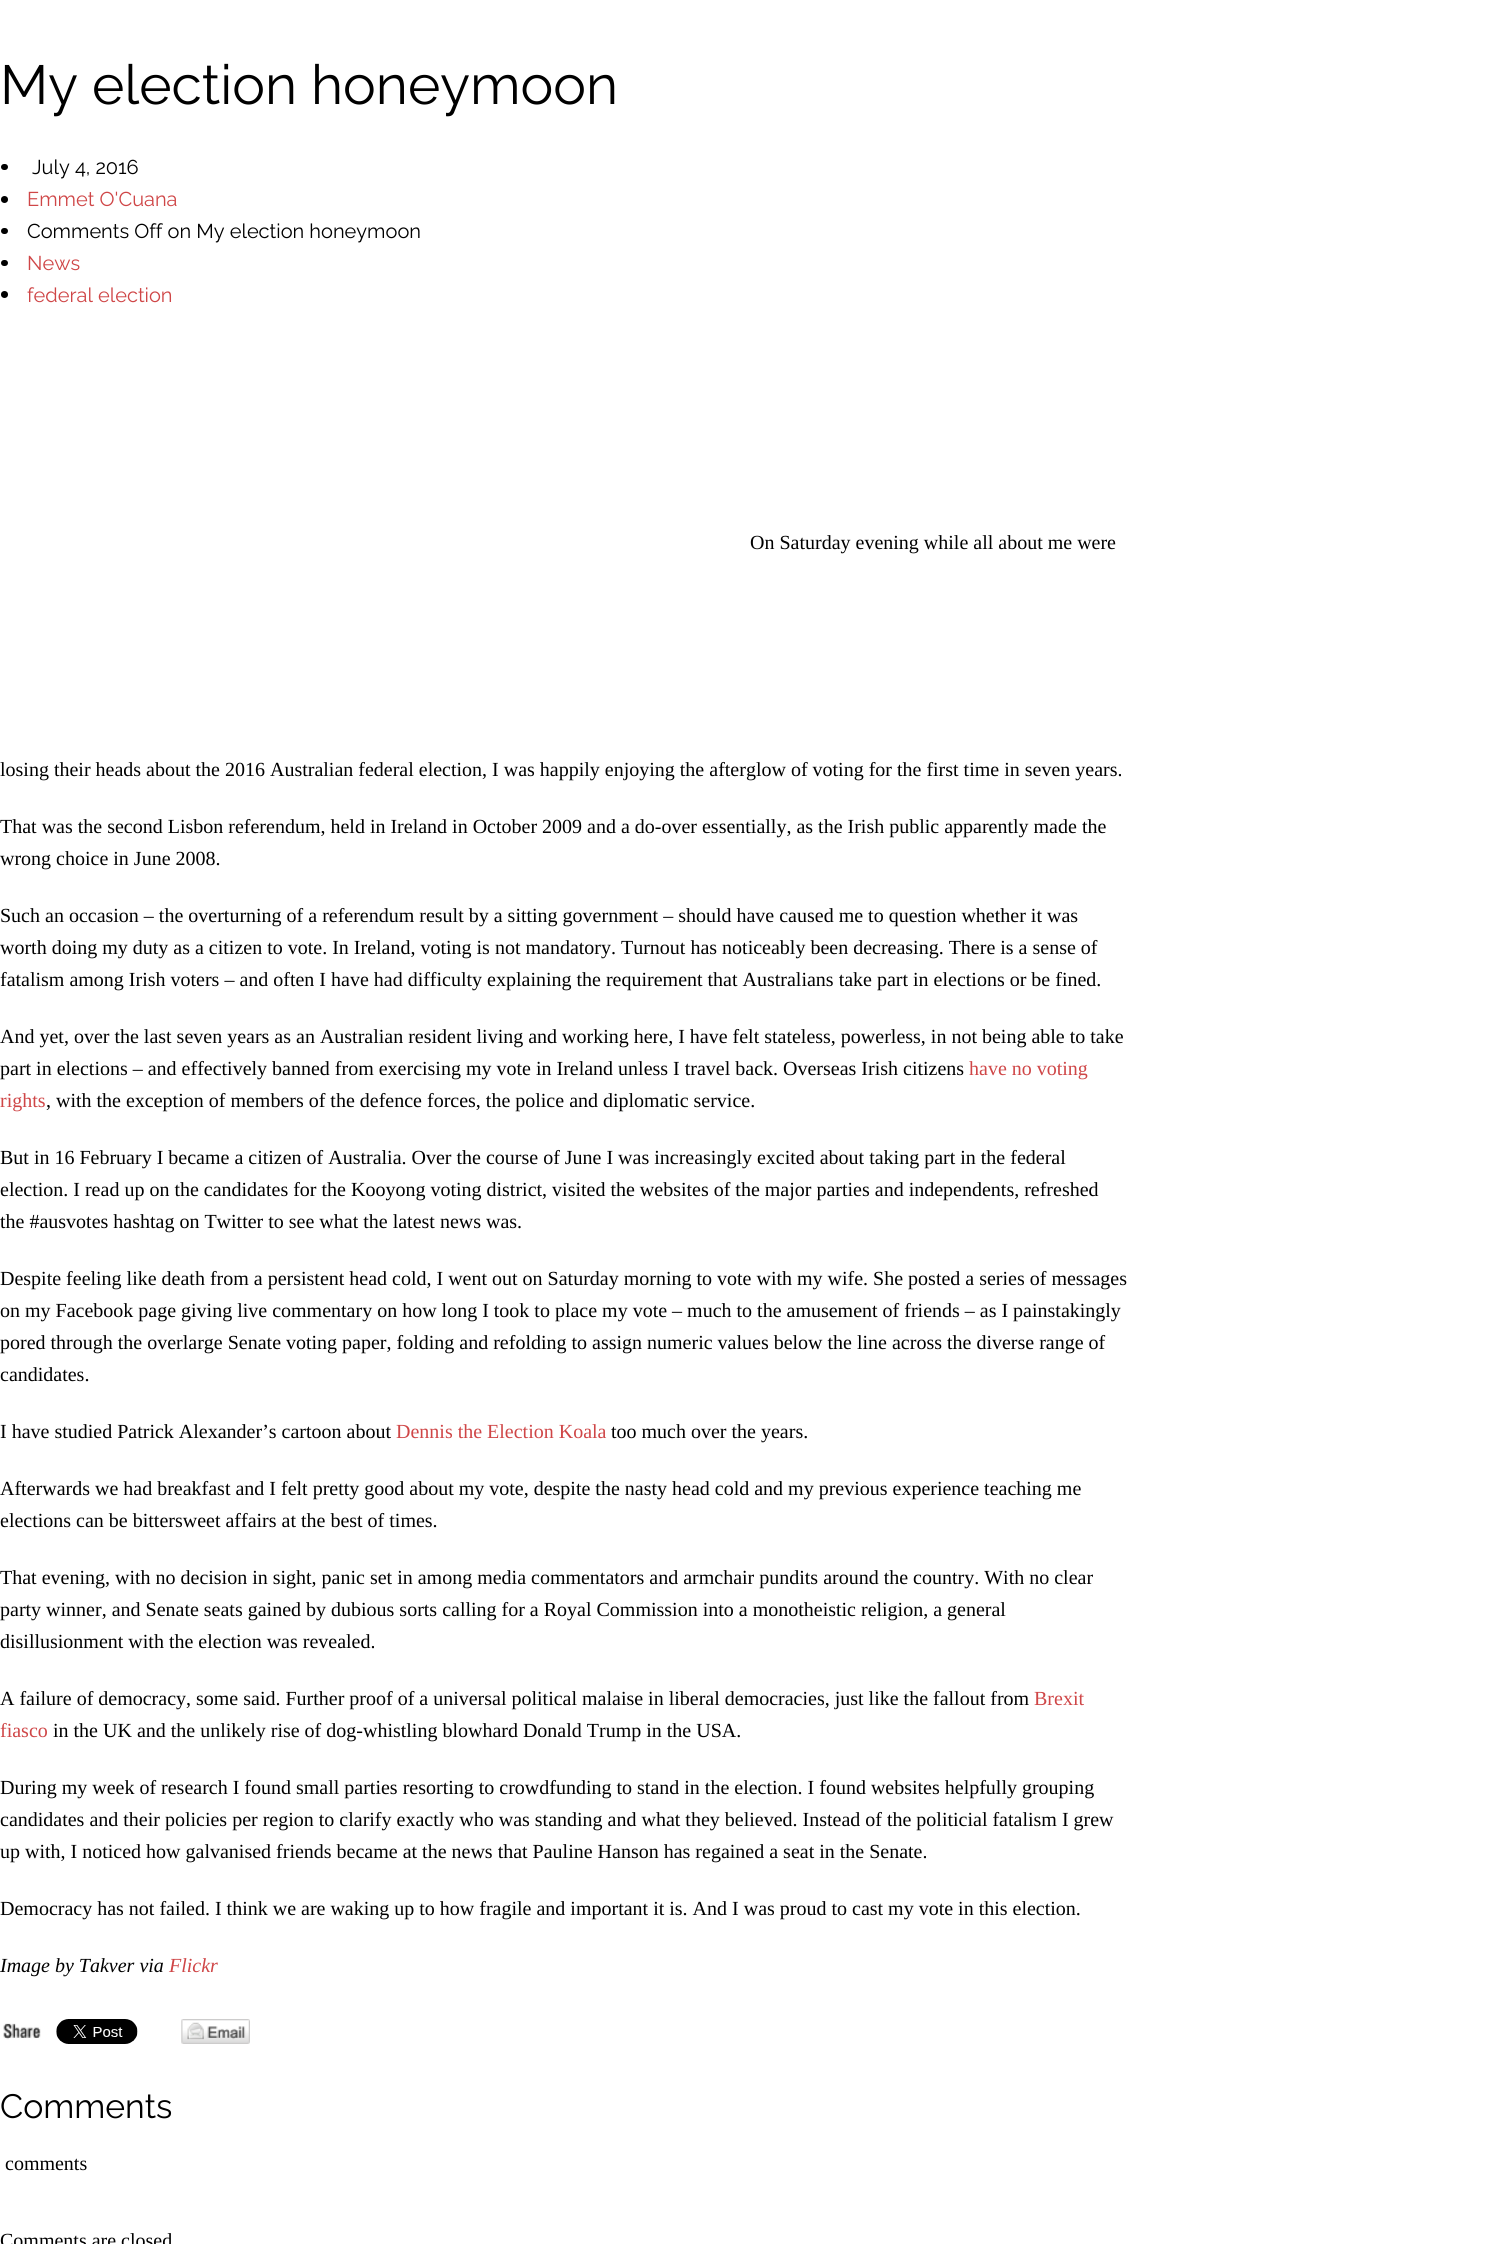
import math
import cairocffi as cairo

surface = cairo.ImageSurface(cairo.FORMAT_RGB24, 1503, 2244)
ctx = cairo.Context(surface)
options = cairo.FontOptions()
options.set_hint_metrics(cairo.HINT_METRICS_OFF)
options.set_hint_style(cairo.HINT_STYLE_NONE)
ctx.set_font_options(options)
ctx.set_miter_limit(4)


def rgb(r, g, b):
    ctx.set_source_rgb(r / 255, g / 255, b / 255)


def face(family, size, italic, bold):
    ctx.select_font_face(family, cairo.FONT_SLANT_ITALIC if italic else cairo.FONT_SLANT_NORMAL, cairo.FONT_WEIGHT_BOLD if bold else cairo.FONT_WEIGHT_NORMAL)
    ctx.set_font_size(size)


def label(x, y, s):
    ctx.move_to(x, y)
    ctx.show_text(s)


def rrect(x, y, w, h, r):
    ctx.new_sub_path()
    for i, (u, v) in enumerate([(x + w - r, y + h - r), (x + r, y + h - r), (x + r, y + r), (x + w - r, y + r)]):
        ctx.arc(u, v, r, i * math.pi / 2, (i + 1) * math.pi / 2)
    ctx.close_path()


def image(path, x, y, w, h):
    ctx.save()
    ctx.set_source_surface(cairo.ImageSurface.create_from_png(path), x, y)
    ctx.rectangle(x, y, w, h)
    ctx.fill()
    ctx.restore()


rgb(255, 255, 255)
ctx.paint()
face('Raleway', 55, 0, 0)
rgb(0, 0, 0)
label(0, 104, 'My election honeymoon')
rrect(1, 164, 7, 6, 3)
ctx.fill()
face('Raleway', 20, 0, 0)
label(32, 174, 'July 4, 2016')
ctx.new_path()
ctx.arc(4.5, 199.5, 3.5, 0, 2 * math.pi)
ctx.fill()
rgb(207, 70, 71)
label(27, 206, 'Emmet O\'Cuana')
rgb(0, 0, 0)
rrect(1, 228, 7, 6, 3)
ctx.fill()
label(27, 238, 'Comments Off on My election honeymoon')
rrect(1, 260, 7, 6, 3)
ctx.fill()
rgb(207, 70, 71)
label(27, 270, 'News')
rgb(0, 0, 0)
ctx.new_path()
ctx.arc(4.5, 294.5, 3.5, 0, 2 * math.pi)
ctx.fill()
rgb(207, 70, 71)
label(27, 302, 'federal election')
face('Liberation Serif', 20, 0, 0)
rgb(0, 0, 0)
label(750, 549, 'On Saturday evening while all about me were')
label(0, 776, 'losing their heads about the 2016 Australian federal election, I was happily enjoying the afterglow of voting for the first time in seven years.')
label(0, 833, 'That was the second Lisbon referendum, held in Ireland in October 2009 and a do-over essentially, as the Irish public apparently made the')
label(0, 865, 'wrong choice in June 2008.')
label(0, 922, 'Such an occasion – the overturning of a referendum result by a sitting government – should have caused me to question whether it was')
label(0, 954, 'worth doing my duty as a citizen to vote. In Ireland, voting is not mandatory. Turnout has noticeably been decreasing. There is a sense of')
label(0, 986, 'fatalism among Irish voters – and often I have had difficulty explaining the requirement that Australians take part in elections or be fined.')
label(0, 1043, 'And yet, over the last seven years as an Australian resident living and working here, I have felt stateless, powerless, in not being able to take')
label(0, 1075, 'part in elections – and effectively banned from exercising my vote in Ireland unless I travel back. Overseas Irish citizens')
rgb(207, 70, 71)
label(969, 1075, 'have no voting')
label(0, 1107, 'rights')
rgb(0, 0, 0)
label(46, 1107, ', with the exception of members of the defence forces, the police and diplomatic service.')
label(0, 1164, 'But in 16 February I became a citizen of Australia. Over the course of June I was increasingly excited about taking part in the federal')
label(0, 1196, 'election. I read up on the candidates for the Kooyong voting district, visited the websites of the major parties and independents, refreshed')
label(0, 1228, 'the #ausvotes hashtag on Twitter to see what the latest news was.')
label(0, 1285, 'Despite feeling like death from a persistent head cold, I went out on Saturday morning to vote with my wife. She posted a series of messages')
label(0, 1317, 'on my Facebook page giving live commentary on how long I took to place my vote – much to the amusement of friends – as I painstakingly')
label(0, 1349, 'pored through the overlarge Senate voting paper, folding and refolding to assign numeric values below the line across the diverse range of')
label(0, 1381, 'candidates.')
label(0, 1438, 'I have studied Patrick Alexander’s cartoon about')
rgb(207, 70, 71)
label(396, 1438, 'Dennis the Election Koala')
rgb(0, 0, 0)
label(611, 1438, 'too much over the years.')
label(0, 1495, 'Afterwards we had breakfast and I felt pretty good about my vote, despite the nasty head cold and my previous experience teaching me')
label(0, 1527, 'elections can be bittersweet affairs at the best of times.')
label(0, 1584, 'That evening, with no decision in sight, panic set in among media commentators and armchair pundits around the country. With no clear')
label(0, 1616, 'party winner, and Senate seats gained by dubious sorts calling for a Royal Commission into a monotheistic religion, a general')
label(0, 1648, 'disillusionment with the election was revealed.')
label(0, 1705, 'A failure of democracy, some said. Further proof of a universal political malaise in liberal democracies, just like the fallout from')
rgb(207, 70, 71)
label(1034, 1705, 'Brexit')
label(0, 1737, 'fiasco')
rgb(0, 0, 0)
label(53, 1737, 'in the UK and the unlikely rise of dog-whistling blowhard Donald Trump in the USA.')
label(0, 1794, 'During my week of research I found small parties resorting to crowdfunding to stand in the election. I found websites helpfully grouping')
label(0, 1826, 'candidates and their policies per region to clarify exactly who was standing and what they believed. Instead of the politicial fatalism I grew')
label(0, 1858, 'up with, I noticed how galvanised friends became at the news that Pauline Hanson has regained a seat in the Senate.')
label(0, 1915, 'Democracy has not failed. I think we are waking up to how fragile and important it is. And I was proud to cast my vote in this election.')
face('Liberation Serif', 20, 1, 0)
label(0, 1972, 'Image by Takver via')
rgb(207, 70, 71)
label(169, 1972, 'Flickr')
image('image0.png', 3, 2023, 38, 17)
image('image1.png', 56, 2019, 82, 25)
image('image2.png', 181, 2019, 69, 25)
face('Raleway', 33.75, 0, 0)
rgb(0, 0, 0)
label(0, 2118, 'Comments')
face('Liberation Serif', 20, 0, 0)
label(5, 2170, 'comments')
label(0, 2247, 'Comments are closed')
surface.write_to_png('render.png')
